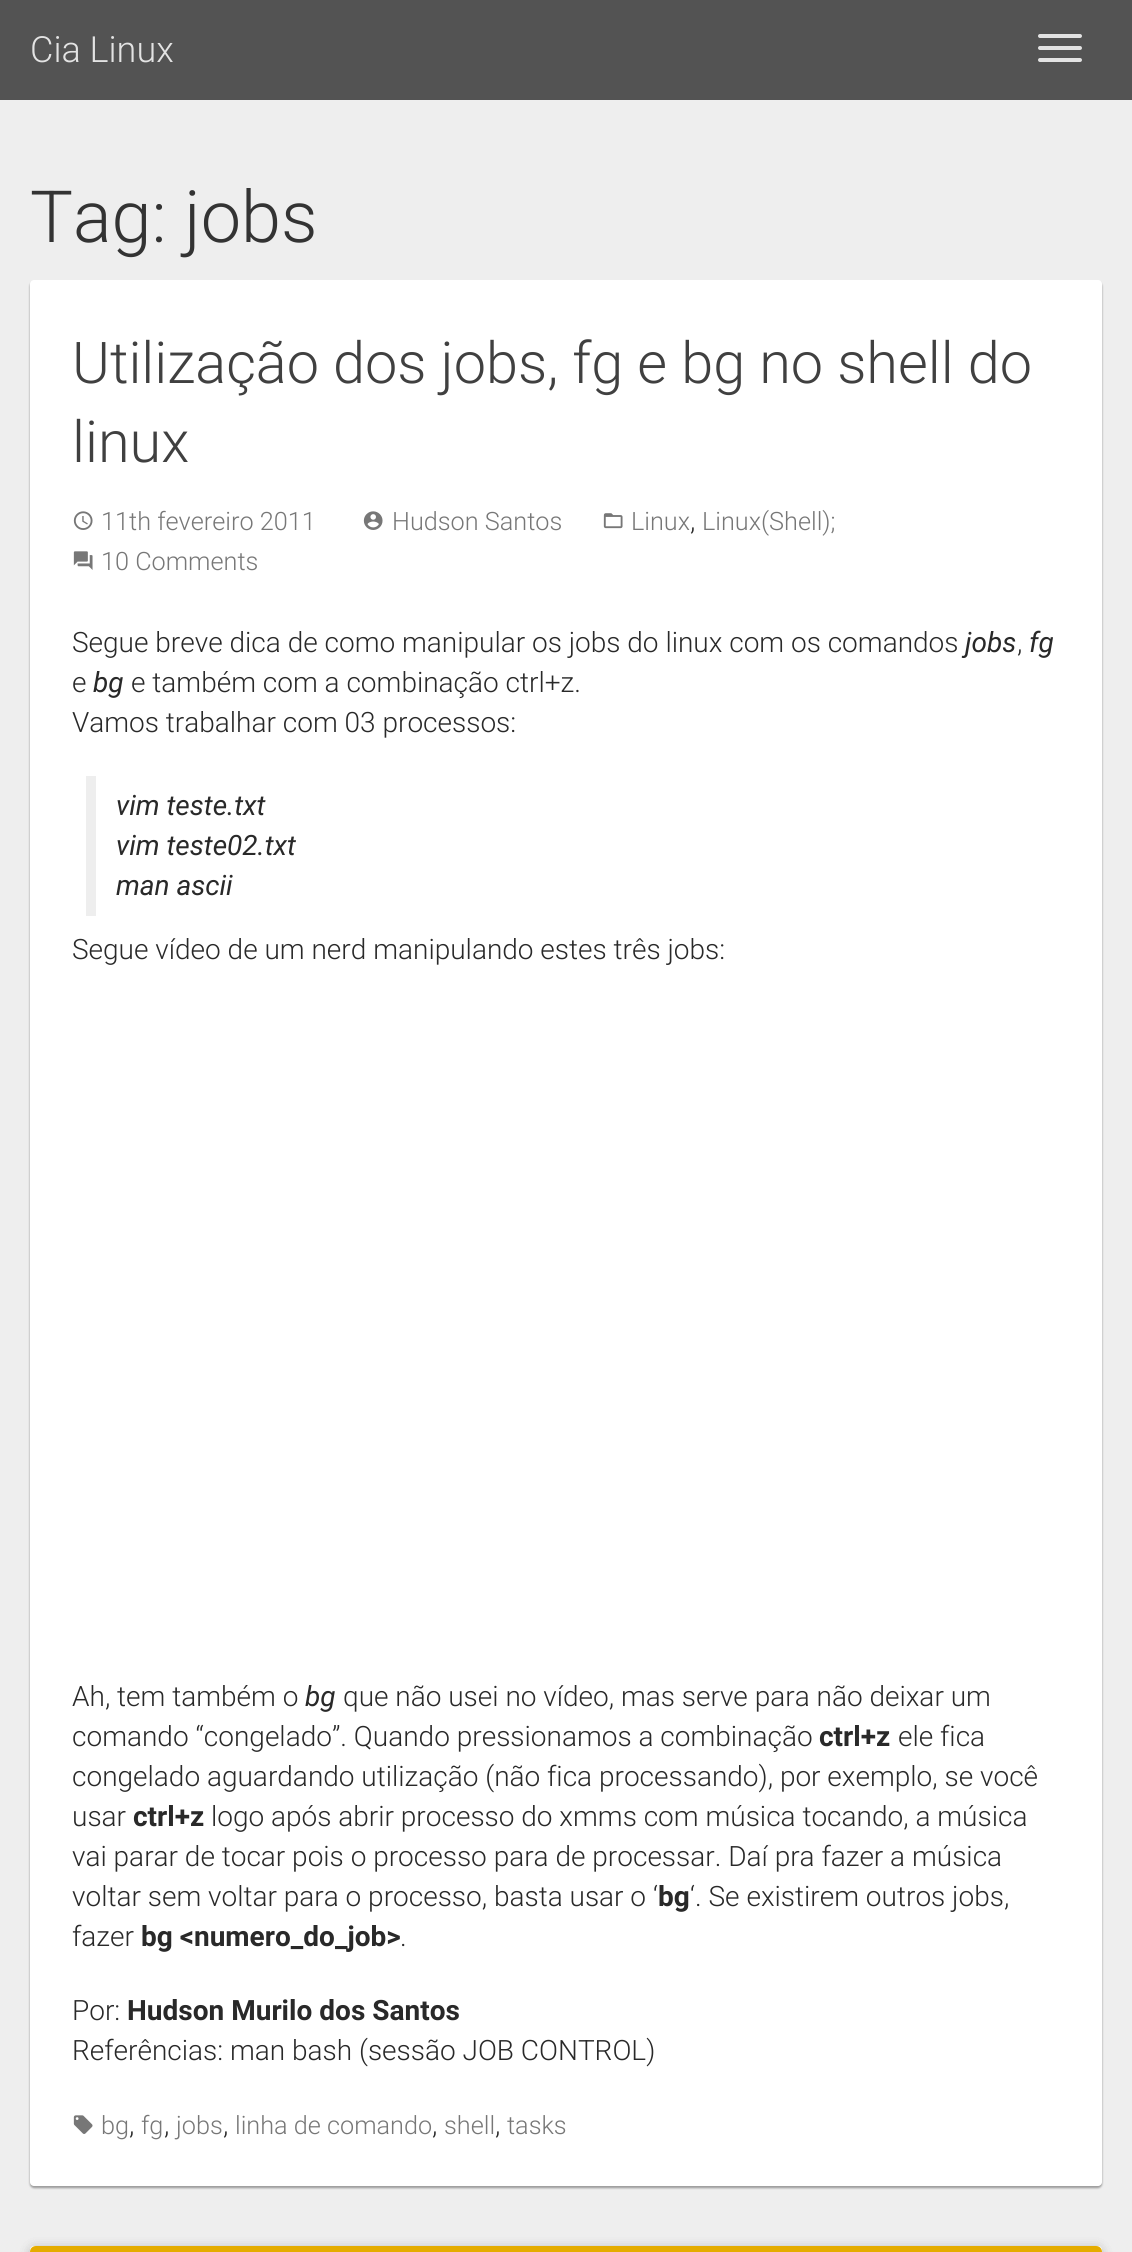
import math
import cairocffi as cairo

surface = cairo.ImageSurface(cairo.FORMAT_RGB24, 1132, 2252)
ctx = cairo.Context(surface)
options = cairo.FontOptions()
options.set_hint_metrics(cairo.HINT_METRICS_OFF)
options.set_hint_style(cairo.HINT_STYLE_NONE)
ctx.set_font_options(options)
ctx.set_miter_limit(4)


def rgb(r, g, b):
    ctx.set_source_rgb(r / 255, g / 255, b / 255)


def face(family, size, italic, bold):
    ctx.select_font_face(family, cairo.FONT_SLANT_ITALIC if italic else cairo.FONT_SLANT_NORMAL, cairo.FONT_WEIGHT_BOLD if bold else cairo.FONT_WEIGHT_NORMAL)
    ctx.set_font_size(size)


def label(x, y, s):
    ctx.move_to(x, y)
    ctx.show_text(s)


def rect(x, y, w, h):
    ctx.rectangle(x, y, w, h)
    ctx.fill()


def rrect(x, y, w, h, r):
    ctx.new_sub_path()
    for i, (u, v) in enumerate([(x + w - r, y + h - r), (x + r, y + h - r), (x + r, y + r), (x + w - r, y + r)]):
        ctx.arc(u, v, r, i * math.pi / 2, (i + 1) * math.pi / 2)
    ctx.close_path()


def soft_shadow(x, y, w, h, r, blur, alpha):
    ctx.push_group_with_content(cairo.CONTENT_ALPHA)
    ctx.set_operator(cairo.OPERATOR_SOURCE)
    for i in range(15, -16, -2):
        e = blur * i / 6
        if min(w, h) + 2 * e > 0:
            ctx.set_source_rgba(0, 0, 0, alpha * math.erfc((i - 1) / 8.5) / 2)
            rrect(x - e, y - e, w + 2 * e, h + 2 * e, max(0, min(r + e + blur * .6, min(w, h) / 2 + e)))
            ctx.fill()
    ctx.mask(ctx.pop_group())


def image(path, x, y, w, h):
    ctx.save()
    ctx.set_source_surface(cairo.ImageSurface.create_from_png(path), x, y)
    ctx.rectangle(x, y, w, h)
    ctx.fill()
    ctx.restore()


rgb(238, 238, 238)
ctx.paint()
rgb(83, 83, 83)
rect(0, 0, 1132, 100)
face('Roboto Light', 36, 0, 0)
rgb(227, 227, 227)
label(30, 62, 'Cia Linux')
rrect(1038, 34, 44, 4, 2)
ctx.fill()
rrect(1038, 46, 44, 4, 2)
ctx.fill()
rrect(1038, 58, 44, 4, 2)
ctx.fill()
face('Roboto Light', 72, 0, 0)
rgb(51, 51, 51)
label(30, 242, 'Tag: jobs')
rgb(0, 0, 0)
soft_shadow(30, 282, 1072, 1906, 4, 1, 0.16)
soft_shadow(30, 282, 1072, 1906, 4, 1, 0.23)
rgb(255, 255, 255)
rrect(30, 280, 1072, 1906, 4)
ctx.fill()
face('Roboto Light', 57.6, 0, 0)
rgb(64, 64, 64)
label(72, 383, 'Utilização dos jobs, fg e bg no shell do')
label(72, 462, 'linux')
image('image0.png', 73, 511, 20, 19)
face('Roboto Light', 25.25, 0, 0)
rgb(119, 119, 119)
label(101, 530, '11th fevereiro 2011')
image('image1.png', 363, 511, 20, 19)
label(392, 530, 'Hudson Santos')
image('image2.png', 603, 513, 20, 16)
label(631, 530, 'Linux')
label(702, 530, 'Linux(Shell);')
face('Roboto Light', 28, 0, 0)
rgb(41, 41, 41)
label(690, 530, ',')
image('image3.png', 73, 551, 20, 19)
face('Roboto Light', 25.25, 0, 0)
rgb(119, 119, 119)
label(101, 570, '10 Comments')
face('Roboto Light', 28, 0, 0)
rgb(41, 41, 41)
label(72, 652, 'Segue breve dica de como manipular os jobs do linux com os comandos')
face('Roboto', 28, 1, 0)
label(965, 652, 'jobs')
face('Roboto Light', 28, 0, 0)
label(1017, 652, ',')
face('Roboto', 28, 1, 0)
label(1029, 652, 'fg')
face('Roboto Light', 28, 0, 0)
label(72, 692, 'e')
face('Roboto', 28, 1, 0)
label(93, 692, 'bg')
face('Roboto Light', 28, 0, 0)
label(131, 692, 'e também com a combinação ctrl+z.')
label(72, 732, 'Vamos trabalhar com 03 processos:')
rgb(238, 238, 238)
rect(86, 776, 10, 140)
face('Roboto', 28, 1, 0)
rgb(41, 41, 41)
label(116, 815, 'vim teste.txt')
label(116, 855, 'vim teste02.txt')
label(116, 895, 'man ascii')
face('Roboto Light', 28, 0, 0)
label(72, 959, 'Segue vídeo de um nerd manipulando estes três jobs:')
label(72, 1706, 'Ah, tem também o')
face('Roboto', 28, 1, 0)
label(305, 1706, 'bg')
face('Roboto Light', 28, 0, 0)
label(343, 1706, 'que não usei no vídeo, mas serve para não deixar um')
label(72, 1746, 'comando “congelado”. Quando pressionamos a combinação')
face('Roboto', 28, 0, 1)
label(819, 1746, 'ctrl+z')
face('Roboto Light', 28, 0, 0)
label(898, 1746, 'ele fica')
label(72, 1786, 'congelado aguardando utilização (não fica processando), por exemplo, se você')
label(72, 1826, 'usar')
face('Roboto', 28, 0, 1)
label(133, 1826, 'ctrl+z')
face('Roboto Light', 28, 0, 0)
label(211, 1826, 'logo após abrir processo do xmms com música tocando, a música')
label(72, 1866, 'vai parar de tocar pois o processo para de processar. Daí pra fazer a música')
label(72, 1906, 'voltar sem voltar para o processo, basta usar o ‘')
face('Roboto', 28, 0, 1)
label(658, 1906, 'bg')
face('Roboto Light', 28, 0, 0)
label(690, 1906, '‘. Se existirem outros jobs,')
label(72, 1946, 'fazer')
face('Roboto', 28, 0, 1)
label(141, 1946, 'bg <numero_do_job>')
face('Roboto Light', 28, 0, 0)
label(400, 1946, '.')
label(72, 2020, 'Por:')
face('Roboto', 28, 0, 1)
label(127, 2020, 'Hudson Murilo dos Santos')
face('Roboto Light', 28, 0, 0)
label(72, 2060, 'Referências: man bash (sessão JOB CONTROL)')
image('image4.png', 73, 2115, 20, 19)
face('Roboto Light', 25.25, 0, 0)
rgb(119, 119, 119)
label(101, 2134, 'bg')
face('Roboto Light', 28, 0, 0)
rgb(41, 41, 41)
label(129, 2134, ',')
face('Roboto Light', 25.25, 0, 0)
rgb(119, 119, 119)
label(141, 2134, 'fg')
face('Roboto Light', 28, 0, 0)
rgb(41, 41, 41)
label(164, 2134, ',')
face('Roboto Light', 25.25, 0, 0)
rgb(119, 119, 119)
label(176, 2134, 'jobs')
face('Roboto Light', 28, 0, 0)
rgb(41, 41, 41)
label(223, 2134, ',')
face('Roboto Light', 25.25, 0, 0)
rgb(119, 119, 119)
label(235, 2134, 'linha de comando')
face('Roboto Light', 28, 0, 0)
rgb(41, 41, 41)
label(432, 2134, ',')
face('Roboto Light', 25.25, 0, 0)
rgb(119, 119, 119)
label(444, 2134, 'shell')
face('Roboto Light', 28, 0, 0)
rgb(41, 41, 41)
label(495, 2134, ',')
face('Roboto Light', 25.25, 0, 0)
rgb(119, 119, 119)
label(507, 2134, 'tasks')
rgb(0, 0, 0)
soft_shadow(30, 2248, 1072, 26, 4, 6, 0.12)
soft_shadow(30, 2248, 1072, 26, 4, 6, 0.12)
rgb(255, 255, 255)
rrect(30, 2246, 1072, 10, 4)
ctx.fill()
rgb(229, 172, 0)
ctx.new_path()
ctx.move_to(36, 2246)
ctx.line_to(1096, 2246)
ctx.curve_to(1099.5, 2246, 1102, 2248.5, 1102, 2252)
ctx.line_to(1102, 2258)
ctx.line_to(30, 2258)
ctx.line_to(30, 2252)
ctx.curve_to(30, 2248.5, 32.5, 2246, 36, 2246)
ctx.close_path()
ctx.fill()
surface.write_to_png('render.png')
